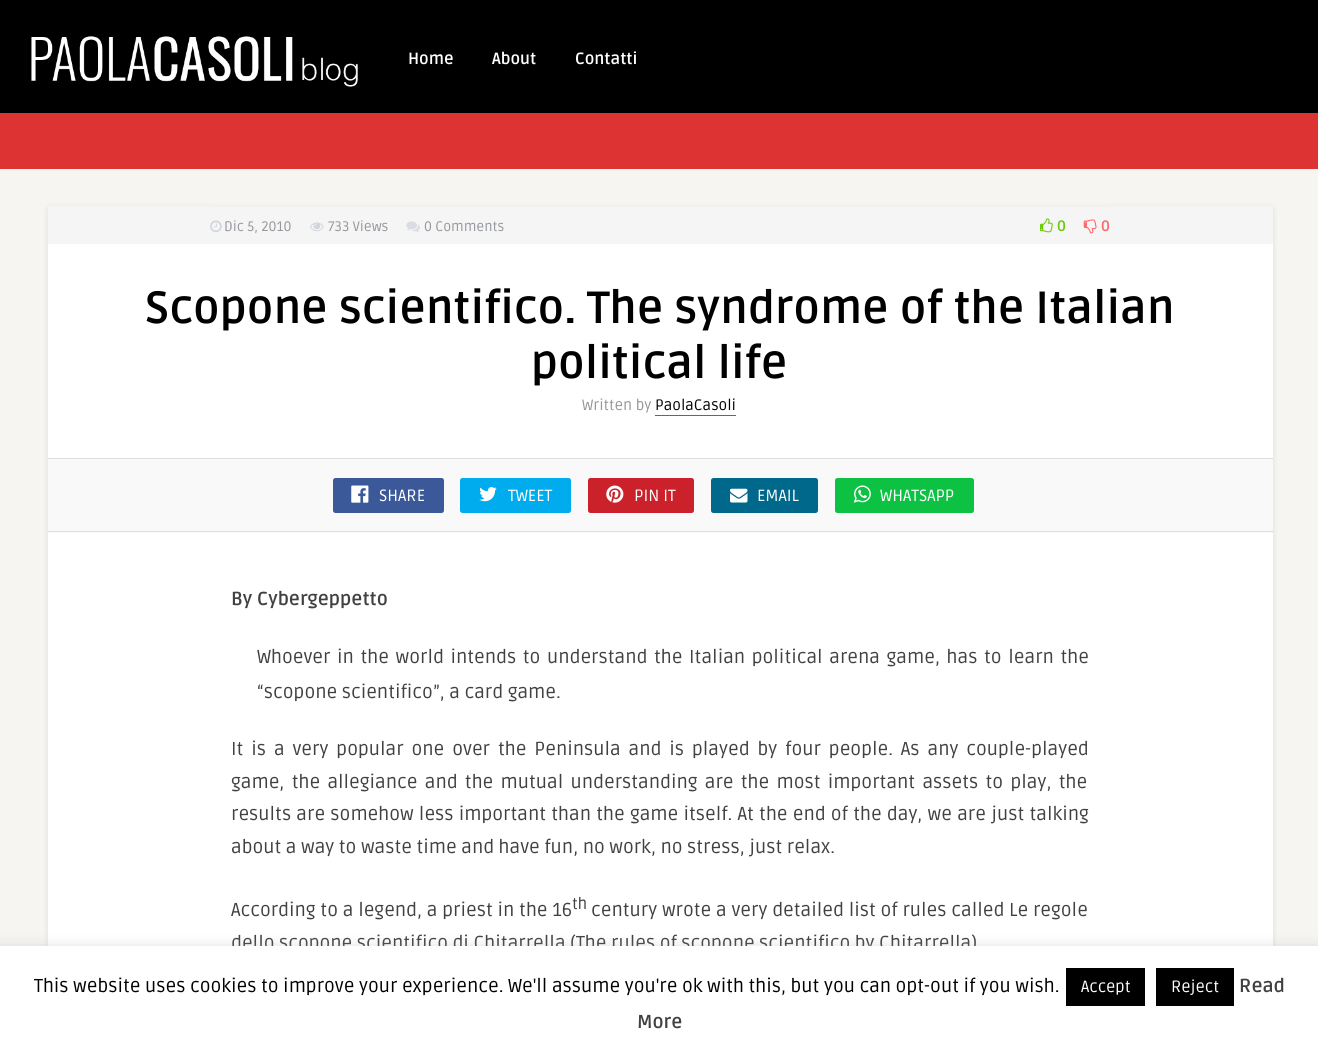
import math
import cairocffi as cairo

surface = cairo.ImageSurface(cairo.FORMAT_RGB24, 1318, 1050)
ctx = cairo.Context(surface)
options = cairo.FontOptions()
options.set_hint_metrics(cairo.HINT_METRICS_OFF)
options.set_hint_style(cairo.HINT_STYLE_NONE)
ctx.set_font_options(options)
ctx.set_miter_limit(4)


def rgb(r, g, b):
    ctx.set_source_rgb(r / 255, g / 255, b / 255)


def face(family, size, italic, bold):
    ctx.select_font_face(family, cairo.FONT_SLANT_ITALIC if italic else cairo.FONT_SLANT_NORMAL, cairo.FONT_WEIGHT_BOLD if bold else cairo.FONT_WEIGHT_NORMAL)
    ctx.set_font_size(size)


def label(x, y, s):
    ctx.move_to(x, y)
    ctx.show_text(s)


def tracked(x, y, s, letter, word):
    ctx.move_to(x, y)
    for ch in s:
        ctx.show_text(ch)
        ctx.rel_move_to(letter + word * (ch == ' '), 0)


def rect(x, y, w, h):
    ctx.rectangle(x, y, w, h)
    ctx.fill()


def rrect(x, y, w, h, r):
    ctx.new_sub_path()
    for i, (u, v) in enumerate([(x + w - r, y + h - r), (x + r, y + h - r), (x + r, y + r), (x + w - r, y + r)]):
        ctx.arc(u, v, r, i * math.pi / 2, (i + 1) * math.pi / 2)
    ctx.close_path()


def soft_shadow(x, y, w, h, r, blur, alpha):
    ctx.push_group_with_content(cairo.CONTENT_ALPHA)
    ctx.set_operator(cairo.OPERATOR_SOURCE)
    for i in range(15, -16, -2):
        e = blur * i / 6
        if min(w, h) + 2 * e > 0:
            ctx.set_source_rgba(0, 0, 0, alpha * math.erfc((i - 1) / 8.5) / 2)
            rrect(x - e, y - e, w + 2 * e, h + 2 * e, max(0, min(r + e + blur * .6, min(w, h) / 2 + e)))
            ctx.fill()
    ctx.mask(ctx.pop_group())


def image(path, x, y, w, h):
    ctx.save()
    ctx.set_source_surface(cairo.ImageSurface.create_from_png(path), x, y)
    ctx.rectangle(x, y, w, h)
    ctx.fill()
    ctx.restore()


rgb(246, 245, 242)
ctx.paint()
rgb(0, 0, 0)
rect(0, 0, 1318, 113)
image('image0.png', 31, 36, 327, 51)
face('Ruda', 16.25, 0, 1)
rgb(255, 255, 255)
label(408, 64, 'Home')
label(492, 64, 'About')
label(575, 64, 'Contatti')
rgb(221, 51, 51)
rect(0, 113, 1318, 56)
rgb(0, 0, 0)
soft_shadow(48, 208, 1225, 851, 0, 3, 0.1)
rgb(255, 255, 255)
rect(48, 244, 1225, 702)
rgb(245, 245, 245)
rect(48, 206, 1225, 38)
rgb(241, 241, 241)
rect(210, 206, 900, 1)
image('image1.png', 210, 220, 12, 13)
face('Ruda', 13.75, 0, 0)
rgb(148, 151, 156)
label(224, 231, 'Dic 5, 2010')
image('image2.png', 310, 222, 14, 10)
label(328, 231, '733 Views')
image('image3.png', 406, 221, 14, 12)
label(424, 231, '0 Comments')
image('image4.png', 1040, 218, 13, 15)
face('Ruda', 15, 0, 1)
rgb(110, 203, 10)
label(1057, 231, '0')
image('image5.png', 1083, 219, 14, 15)
rgb(254, 105, 105)
label(1101, 231, '0')
face('Ruda', 45, 0, 1)
rgb(0, 0, 0)
label(145, 323, 'Scopone scientifico. The syndrome of the Italian')
label(531, 378, 'political life')
face('Ruda', 15, 0, 0)
rgb(148, 151, 156)
label(582, 410, 'Written by')
rgb(0, 0, 0)
label(655, 410, 'PaolaCasoli')
rgb(221, 51, 51)
rect(655, 415, 81, 1)
rgb(249, 249, 249)
rect(48, 459, 1225, 74)
rgb(221, 221, 221)
rect(48, 458, 1225, 1)
rect(48, 531, 1225, 1)
rgb(59, 89, 152)
rrect(333, 478, 111, 35, 2.5)
ctx.fill()
image('image6.png', 351, 485, 18, 18)
face('Ruda', 16.25, 0, 0)
rgb(255, 255, 255)
label(379, 501, 'SHARE')
rgb(0, 172, 237)
rrect(460, 478, 111, 35, 2.5)
ctx.fill()
image('image7.png', 479, 487, 18, 15)
rgb(255, 255, 255)
label(508, 501, 'TWEET')
rgb(202, 33, 42)
rrect(588, 478, 106, 35, 2.5)
ctx.fill()
image('image8.png', 606, 485, 18, 18)
rgb(255, 255, 255)
label(634, 501, 'PIN IT')
rgb(0, 104, 138)
rrect(711, 478, 107, 35, 2.5)
ctx.fill()
image('image9.png', 730, 488, 18, 15)
rgb(255, 255, 255)
label(757, 501, 'EMAIL')
rgb(13, 193, 67)
rrect(835, 478, 139, 35, 2.5)
ctx.fill()
image('image10.png', 853, 485, 18, 18)
rgb(255, 255, 255)
label(880, 501, 'WHATSAPP')
face('Ruda', 18.75, 0, 1)
rgb(65, 65, 65)
label(231, 605, 'By Cybergeppetto')
face('Ruda', 18.75, 0, 0)
tracked(257, 663, 'Whoever in the world intends to understand the Italian political arena game, has to learn the', 0, 2.1)
label(257, 698, '“scopone scientifico”, a card game.')
tracked(231, 755, 'It is a very popular one over the Peninsula and is played by four people. As any couple-played', 0, 3.4)
tracked(231, 788, 'game, the allegiance and the mutual understanding are the most important assets to play, the', 0, 2.75)
tracked(231, 820, 'results are somehow less important than the game itself. At the end of the day, we are just talking', 0, 0.7)
label(231, 853, 'about a way to waste time and have fun, no work, no stress, just relax.')
tracked(231, 916, 'According to a legend, a priest in the 16', 0, 0.25)
face('Ruda', 16, 0, 0)
label(572, 909, 'th')
face('Ruda', 18.75, 0, 0)
tracked(591, 916, 'century wrote a very detailed list of rules called Le regole', 0, 0.25)
label(231, 949, 'dello scopone scientifico di Chitarrella (The rules of scopone scientifico by Chitarrella)')
rgb(172, 171, 171)
soft_shadow(0, 945, 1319, 104, 0, 6, 0.3)
rgb(255, 255, 255)
rect(0, 946, 1318, 104)
rgb(0, 0, 0)
label(34, 992, 'This website uses cookies to improve your experience. We\'ll assume you\'re ok with this, but you can opt-out if you wish.')
rect(1066, 968, 79, 38)
face('Ruda', 16.25, 0, 0)
rgb(255, 255, 255)
label(1081, 992, 'Accept')
rgb(0, 0, 0)
rect(1156, 968, 78, 38)
rgb(255, 255, 255)
label(1171, 992, 'Reject')
face('Ruda', 18.75, 0, 1)
rgb(65, 65, 65)
label(1239, 992, 'Read')
label(637, 1028, 'More')
surface.write_to_png('render.png')
